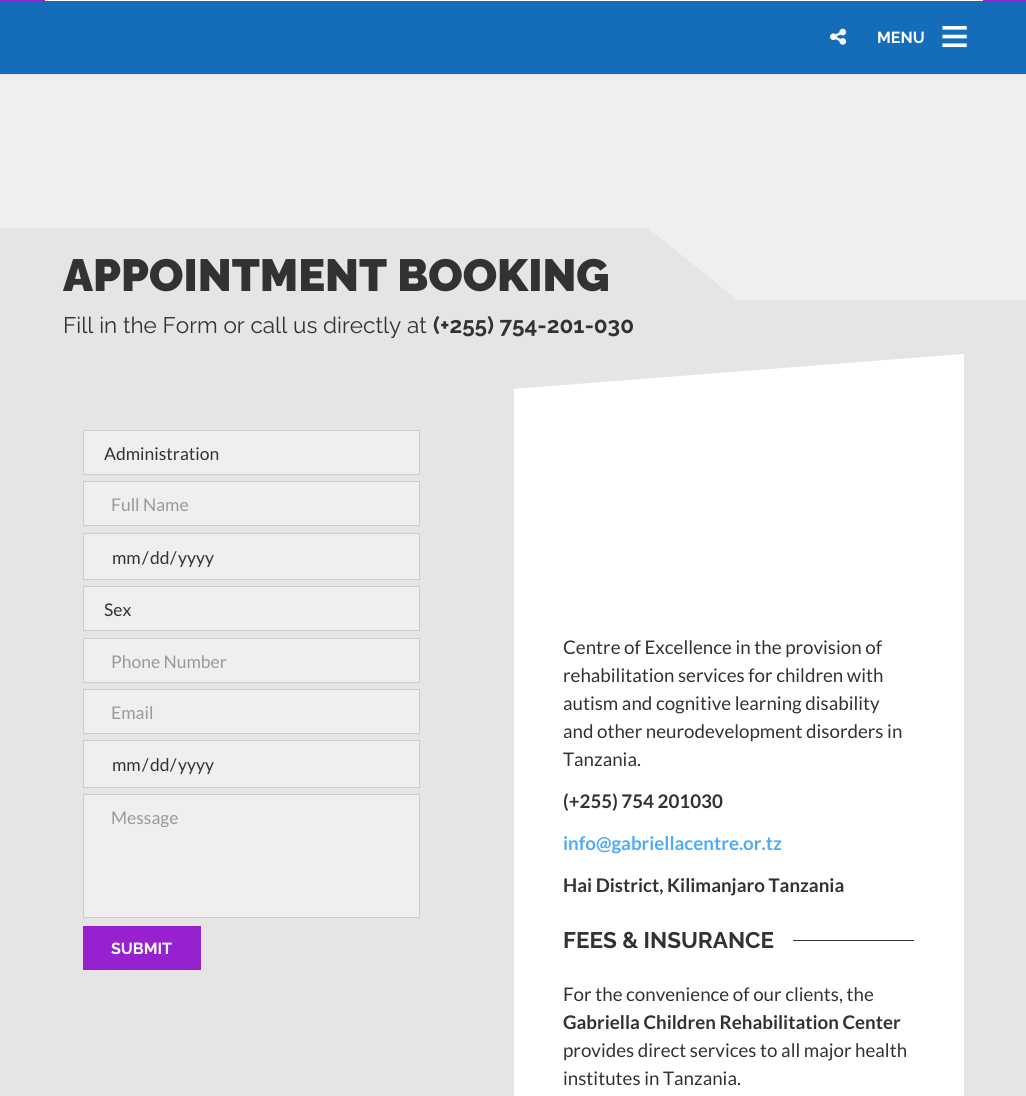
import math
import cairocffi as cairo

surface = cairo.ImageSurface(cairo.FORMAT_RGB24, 1026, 1096)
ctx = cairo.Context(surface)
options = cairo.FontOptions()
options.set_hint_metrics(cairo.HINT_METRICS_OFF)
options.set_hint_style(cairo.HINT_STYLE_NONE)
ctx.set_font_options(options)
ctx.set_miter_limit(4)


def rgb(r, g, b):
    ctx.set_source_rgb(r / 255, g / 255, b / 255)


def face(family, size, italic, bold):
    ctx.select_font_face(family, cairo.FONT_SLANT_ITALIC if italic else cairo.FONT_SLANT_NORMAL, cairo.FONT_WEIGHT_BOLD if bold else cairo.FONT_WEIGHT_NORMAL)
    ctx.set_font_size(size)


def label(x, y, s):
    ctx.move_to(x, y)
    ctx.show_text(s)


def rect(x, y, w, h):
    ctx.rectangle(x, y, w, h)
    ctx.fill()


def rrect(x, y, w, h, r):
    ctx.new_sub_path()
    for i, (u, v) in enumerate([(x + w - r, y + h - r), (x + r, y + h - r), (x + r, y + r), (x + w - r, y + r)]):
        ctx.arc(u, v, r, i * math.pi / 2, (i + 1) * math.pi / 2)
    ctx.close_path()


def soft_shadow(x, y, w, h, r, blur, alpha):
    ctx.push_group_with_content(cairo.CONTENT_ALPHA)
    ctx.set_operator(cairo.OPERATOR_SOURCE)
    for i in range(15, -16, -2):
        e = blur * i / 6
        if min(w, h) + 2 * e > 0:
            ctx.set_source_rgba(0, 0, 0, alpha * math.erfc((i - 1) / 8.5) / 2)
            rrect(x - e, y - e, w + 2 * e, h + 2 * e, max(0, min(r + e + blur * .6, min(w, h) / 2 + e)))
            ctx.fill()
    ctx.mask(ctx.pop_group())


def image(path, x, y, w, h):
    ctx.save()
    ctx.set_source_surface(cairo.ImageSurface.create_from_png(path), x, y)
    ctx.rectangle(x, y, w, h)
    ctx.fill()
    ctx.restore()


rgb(239, 239, 239)
ctx.paint()
ctx.save()
ctx.set_fill_rule(cairo.FILL_RULE_EVEN_ODD)
ctx.new_path()
ctx.move_to(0, 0)
ctx.line_to(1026, 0)
ctx.line_to(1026, 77)
ctx.line_to(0, 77)
ctx.close_path()
ctx.move_to(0, 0)
ctx.line_to(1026, 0)
ctx.line_to(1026, 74)
ctx.line_to(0, 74)
ctx.close_path()
ctx.clip()
rgb(0, 0, 0)
soft_shadow(0, 0, 1026, 74, 0, 0.5, 0.2)
ctx.restore()
ctx.set_source_rgba(0.078, 0.424, 0.729, 0.99)
rect(0, 1, 1026, 73)
rgb(151, 33, 206)
rect(0, 0, 1026, 1)
rgb(255, 255, 255)
rect(45, 0, 938, 1)
image('image0.png', 830, 28, 17, 17)
face('Raleway', 16, 0, 1)
label(877, 43, 'MENU')
face('Liberation Sans', 50, 0, 1)
label(940, 53, '≡')
gradient = cairo.LinearGradient(0, 264, 1026, 264)
gradient.add_color_stop_rgba(0, 0.898, 0.898, 0.898, 1)
gradient.add_color_stop_rgba(0.15, 0.898, 0.898, 0.898, 1)
gradient.add_color_stop_rgba(0.15, 0.937, 0.937, 0.937, 1)
gradient.add_color_stop_rgba(1, 0.937, 0.937, 0.937, 1)
ctx.set_source(gradient)
rect(0, 228, 154, 72)
rgb(229, 229, 229)
rect(154, 228, 494, 72)
face('Raleway Black', 45, 0, 0)
rgb(50, 50, 50)
label(63, 291, 'APPOINTMENT BOOKING')
gradient = cairo.LinearGradient(657, 308, 728, 220)
gradient.add_color_stop_rgba(0, 0.898, 0.898, 0.898, 1)
gradient.add_color_stop_rgba(0.5, 0.898, 0.898, 0.898, 1)
gradient.add_color_stop_rgba(0.5, 0.937, 0.937, 0.937, 1)
gradient.add_color_stop_rgba(1, 0.937, 0.937, 0.937, 1)
ctx.set_source(gradient)
rect(648, 228, 89, 72)
rgb(229, 229, 229)
rect(0, 300, 1026, 796)
face('Raleway', 22.5, 0, 0)
rgb(50, 50, 50)
label(63, 333, 'Fill in the Form or call us directly at')
face('Raleway', 22.5, 0, 1)
label(433, 333, '(+255) 754-201-030')
rgb(255, 255, 255)
rect(514, 353, 450, 743)
rgb(229, 229, 229)
ctx.new_path()
ctx.move_to(1026, 349)
ctx.line_to(0, 349)
ctx.line_to(0, 429)
ctx.close_path()
ctx.fill()
rgb(239, 239, 239)
ctx.rectangle(83.5, 430.5, 336, 44)
ctx.fill_preserve()
rgb(203, 203, 203)
ctx.set_line_width(1)
ctx.stroke()
face('Lato', 17.5, 0, 0)
rgb(50, 50, 50)
label(104, 460, 'Administration')
rgb(239, 239, 239)
ctx.rectangle(83.5, 481.5, 336, 44)
ctx.fill_preserve()
rgb(203, 203, 203)
ctx.stroke()
rgb(153, 153, 153)
label(111, 511, 'Full Name')
rgb(239, 239, 239)
ctx.rectangle(83.5, 533.5, 336, 46)
ctx.fill_preserve()
rgb(203, 203, 203)
ctx.stroke()
rgb(50, 50, 50)
label(112, 564, 'mm')
label(142, 564, '/')
label(150, 564, 'dd')
label(170, 564, '/')
label(178, 564, 'yyyy')
rgb(239, 239, 239)
ctx.rectangle(83.5, 586.5, 336, 44)
ctx.fill_preserve()
rgb(203, 203, 203)
ctx.stroke()
rgb(50, 50, 50)
label(104, 616, 'Sex')
rgb(239, 239, 239)
ctx.rectangle(83.5, 638.5, 336, 44)
ctx.fill_preserve()
rgb(203, 203, 203)
ctx.stroke()
rgb(153, 153, 153)
label(111, 668, 'Phone Number')
rgb(239, 239, 239)
ctx.rectangle(83.5, 689.5, 336, 44)
ctx.fill_preserve()
rgb(203, 203, 203)
ctx.stroke()
rgb(153, 153, 153)
label(111, 719, 'Email')
rgb(239, 239, 239)
ctx.rectangle(83.5, 740.5, 336, 47)
ctx.fill_preserve()
rgb(203, 203, 203)
ctx.stroke()
rgb(50, 50, 50)
label(112, 771, 'mm')
label(142, 771, '/')
label(150, 771, 'dd')
label(170, 771, '/')
label(178, 771, 'yyyy')
rgb(239, 239, 239)
ctx.rectangle(83.5, 794.5, 336, 123)
ctx.fill_preserve()
rgb(203, 203, 203)
ctx.stroke()
rgb(153, 153, 153)
label(111, 824, 'Message')
rgb(151, 33, 206)
rect(83, 926, 118, 44)
face('Raleway', 16, 0, 1)
rgb(255, 255, 255)
label(111, 954, 'SUBMIT')
face('Lato', 18.75, 0, 0)
rgb(50, 50, 50)
label(563, 654, 'Centre of Excellence in the provision of')
label(563, 682, 'rehabilitation services for children with')
label(563, 710, 'autism and cognitive learning disability')
label(563, 738, 'and other neurodevelopment disorders in')
label(563, 766, 'Tanzania.')
face('Lato', 18.75, 0, 1)
label(563, 808, '(+255) 754 201030')
rgb(78, 171, 249)
label(563, 850, 'info@gabriellacentre.or.tz')
rgb(50, 50, 50)
label(563, 892, 'Hai District, Kilimanjaro Tanzania')
face('Raleway', 22.5, 0, 1)
label(563, 948, 'FEES & INSURANCE')
rect(793, 940, 121, 1)
face('Lato', 18.75, 0, 0)
label(563, 1001, 'For the convenience of our clients, the')
face('Lato', 18.75, 0, 1)
label(563, 1029, 'Gabriella Children Rehabilitation Center')
face('Lato', 18.75, 0, 0)
label(563, 1057, 'provides direct services to all major health')
label(563, 1085, 'institutes in Tanzania.')
surface.write_to_png('render.png')
